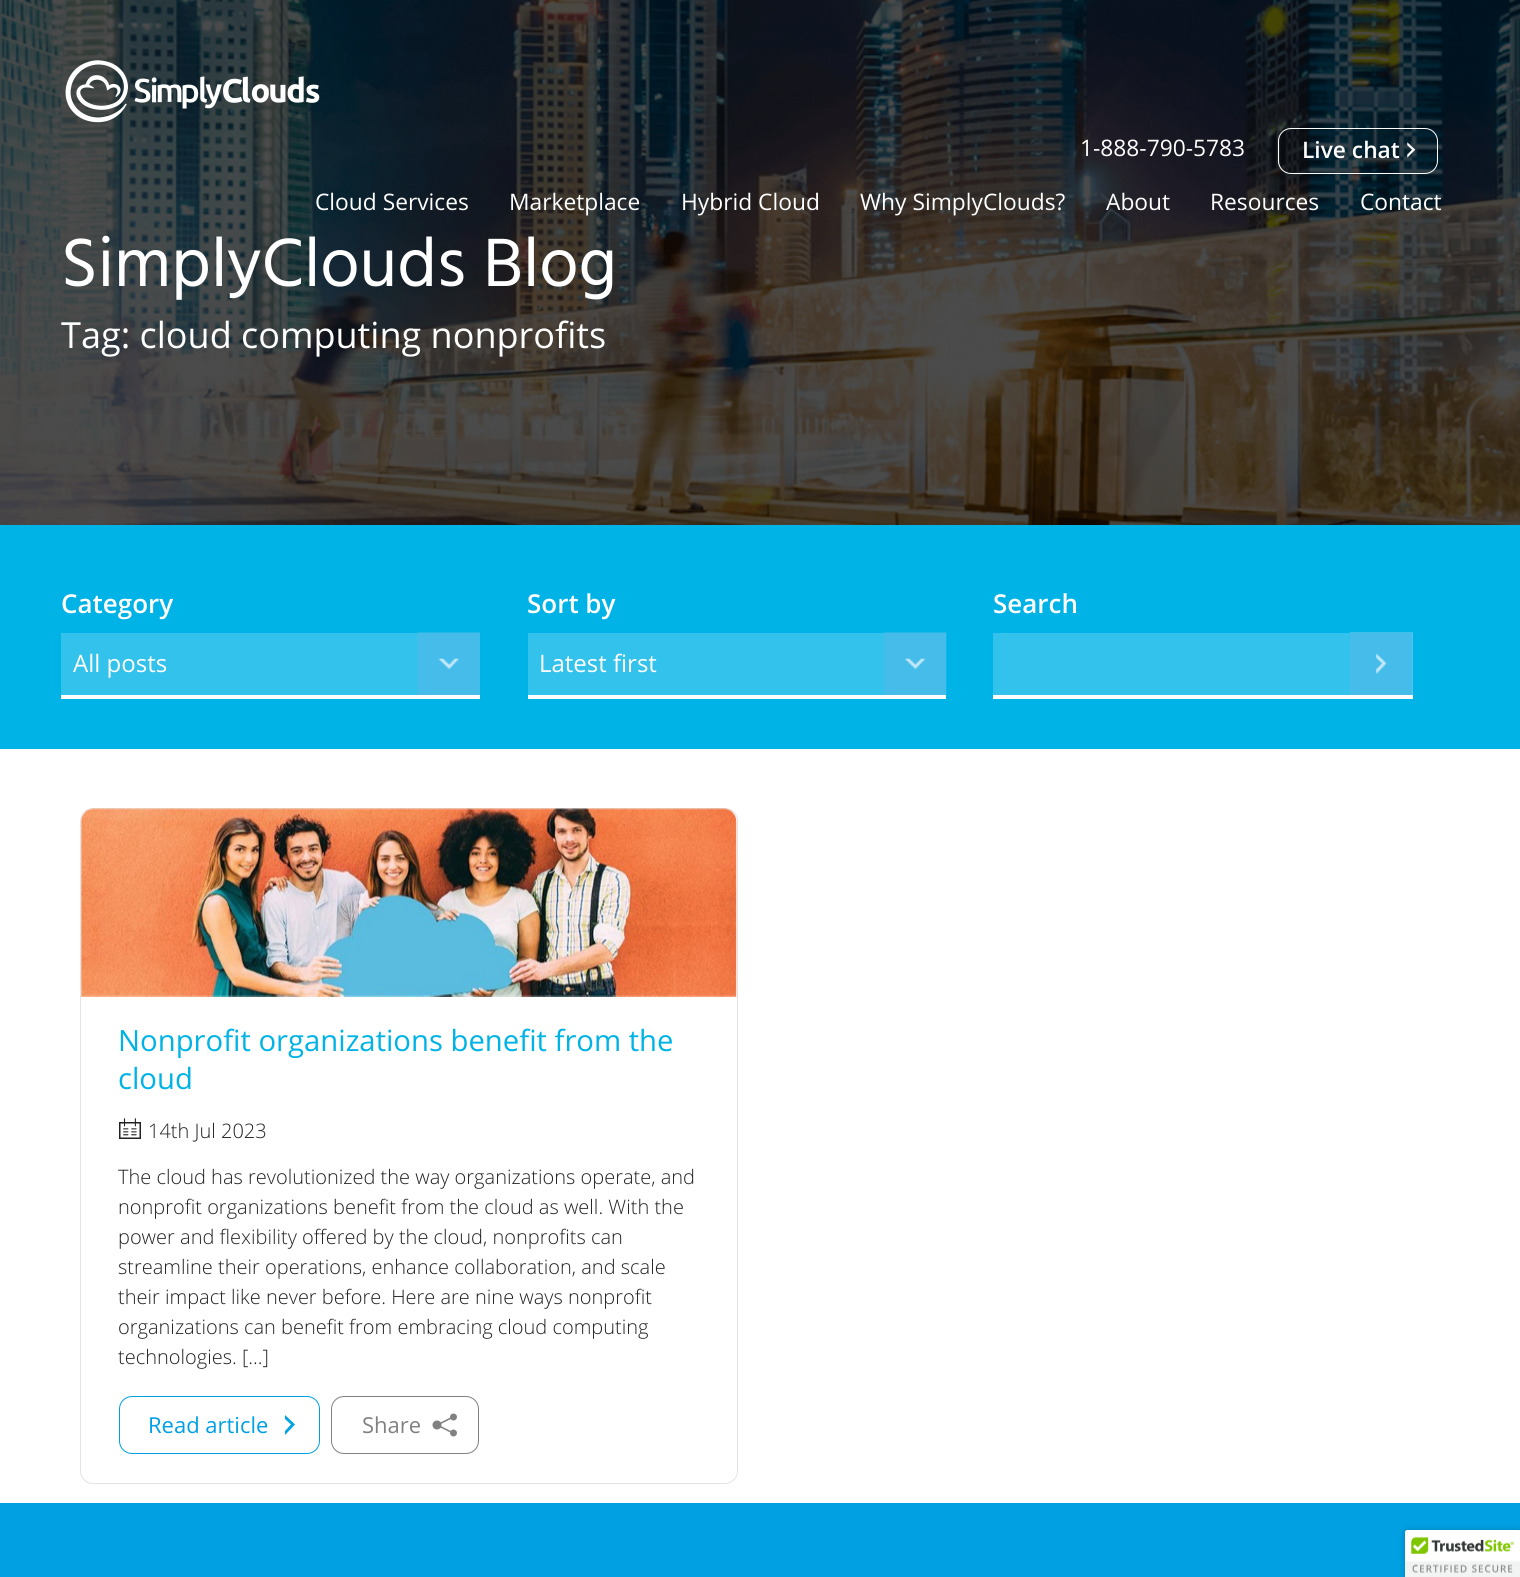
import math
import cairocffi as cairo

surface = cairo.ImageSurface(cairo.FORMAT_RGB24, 1520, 1577)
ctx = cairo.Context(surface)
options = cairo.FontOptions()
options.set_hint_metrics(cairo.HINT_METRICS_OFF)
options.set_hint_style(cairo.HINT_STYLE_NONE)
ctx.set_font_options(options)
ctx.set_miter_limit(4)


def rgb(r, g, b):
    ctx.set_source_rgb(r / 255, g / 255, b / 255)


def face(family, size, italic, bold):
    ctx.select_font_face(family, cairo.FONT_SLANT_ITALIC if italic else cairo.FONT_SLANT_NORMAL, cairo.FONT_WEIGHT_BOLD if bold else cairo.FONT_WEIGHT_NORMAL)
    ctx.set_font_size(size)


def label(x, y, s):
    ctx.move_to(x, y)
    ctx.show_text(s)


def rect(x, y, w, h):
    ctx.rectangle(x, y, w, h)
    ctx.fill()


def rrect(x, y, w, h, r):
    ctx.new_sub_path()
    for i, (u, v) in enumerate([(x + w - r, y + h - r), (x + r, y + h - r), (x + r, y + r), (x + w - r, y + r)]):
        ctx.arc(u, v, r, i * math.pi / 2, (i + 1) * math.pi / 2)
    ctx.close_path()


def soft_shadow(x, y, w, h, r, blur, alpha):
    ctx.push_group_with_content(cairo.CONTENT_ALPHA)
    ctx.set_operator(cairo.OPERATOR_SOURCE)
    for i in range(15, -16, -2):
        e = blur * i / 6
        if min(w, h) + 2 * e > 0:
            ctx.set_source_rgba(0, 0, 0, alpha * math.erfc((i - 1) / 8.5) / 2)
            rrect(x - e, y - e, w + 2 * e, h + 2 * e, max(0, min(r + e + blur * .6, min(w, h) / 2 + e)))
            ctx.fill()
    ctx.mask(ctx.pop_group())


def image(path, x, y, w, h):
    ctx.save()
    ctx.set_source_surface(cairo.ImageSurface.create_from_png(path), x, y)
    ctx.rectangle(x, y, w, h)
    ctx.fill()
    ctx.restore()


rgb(255, 255, 255)
ctx.paint()
image('image2.png', 0, 0, 1520, 525)
image('image0.png', 65, 60, 255, 63)
face('Open Sans', 22.75, 0, 0)
rgb(255, 255, 255)
label(1080, 156, '1-888-790-5783')
image('image1.png', 1407, 142, 9, 16)
rrect(1278.5, 128.5, 159, 45, 12.5)
ctx.set_line_width(1)
ctx.stroke()
face('Open Sans SemiBold', 22.75, 0, 0)
label(1302, 158, 'Live chat')
face('Open Sans', 22.75, 0, 0)
label(315, 210, 'Cloud Services')
label(509, 210, 'Marketplace')
label(681, 210, 'Hybrid Cloud')
label(860, 210, 'Why SimplyClouds?')
label(1106, 210, 'About')
label(1210, 210, 'Resources')
label(1360, 210, 'Contact')
face('Hind', 70, 0, 0)
label(61, 286, 'SimplyClouds Blog')
face('Open Sans', 36, 0, 0)
label(61, 348, 'Tag: cloud computing nonprofits')
rgb(0, 179, 230)
rect(0, 525, 1520, 224)
rgb(51, 194, 235)
rect(1350, 632, 63, 1)
face('Open Sans SemiBold', 26, 0, 0)
rgb(255, 255, 255)
label(61, 613, 'Category')
rect(61, 695, 419, 4)
rgb(51, 194, 235)
rect(61, 633, 357, 62)
face('Open Sans', 24, 0, 0)
rgb(255, 255, 255)
label(73, 672, 'All posts')
image('image3.png', 417, 632, 63, 63)
face('Open Sans SemiBold', 26, 0, 0)
label(527, 613, 'Sort by')
rect(528, 695, 418, 4)
rgb(51, 194, 235)
rect(528, 633, 356, 62)
face('Open Sans', 24, 0, 0)
rgb(255, 255, 255)
label(539, 672, 'Latest first')
image('image4.png', 883, 632, 64, 63)
face('Open Sans SemiBold', 26, 0, 0)
label(993, 613, 'Search')
rect(993, 695, 420, 4)
rgb(92, 206, 239)
rect(1412, 633, 1, 62)
image('image5.png', 1350, 632, 63, 63)
rgb(51, 194, 235)
rect(993, 633, 357, 62)
rrect(80.5, 808.5, 657, 675, 12.5)
rgb(227, 227, 227)
ctx.stroke()
image('image6.png', 81, 808, 656, 189)
face('Open Sans', 29.25, 0, 0)
rgb(0, 179, 230)
label(118, 1051, 'Nonprofit organizations benefit from the')
label(118, 1089, 'cloud')
image('image7.png', 119, 1118, 22, 21)
face('Open Sans Light', 20, 0, 0)
rgb(34, 34, 34)
label(148, 1138, '14th Jul 2023')
label(118, 1184, 'The cloud has revolutionized the way organizations operate, and')
label(118, 1214, 'nonprofit organizations benefit from the cloud as well. With the')
label(118, 1244, 'power and flexibility offered by the cloud, nonprofits can')
label(118, 1274, 'streamline their operations, enhance collaboration, and scale')
label(118, 1304, 'their impact like never before. Here are nine ways nonprofit')
label(118, 1334, 'organizations can benefit from embracing cloud computing')
label(118, 1364, 'technologies. [...]')
rgb(0, 162, 227)
ctx.new_path()
ctx.move_to(285, 1415)
ctx.line_to(285, 1419)
ctx.line_to(291, 1424.5)
ctx.line_to(285, 1431)
ctx.line_to(285, 1435)
ctx.line_to(295, 1424.5)
ctx.close_path()
ctx.fill()
rrect(119.5, 1396.5, 200, 57, 12.5)
rgb(0, 160, 227)
ctx.stroke()
face('Open Sans', 22, 0, 0)
label(148, 1433, 'Read article')
image('image8.png', 432, 1413, 25, 24)
rrect(331.5, 1396.5, 147, 57, 12.5)
rgb(129, 129, 129)
ctx.stroke()
label(362, 1433, 'Share')
rgb(0, 160, 227)
rect(0, 1503, 1520, 74)
rgb(0, 0, 0)
soft_shadow(1405, 1530, 115, 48, 2.5, 3, 0.2)
rgb(255, 255, 255)
ctx.new_path()
ctx.move_to(1407.5, 1530)
ctx.line_to(1520, 1530)
ctx.line_to(1520, 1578)
ctx.line_to(1405, 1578)
ctx.line_to(1405, 1532.5)
ctx.curve_to(1405, 1531, 1406, 1530, 1407.5, 1530)
ctx.close_path()
ctx.fill()
image('image9.png', 1405, 1530, 115, 47)
surface.write_to_png('render.png')
